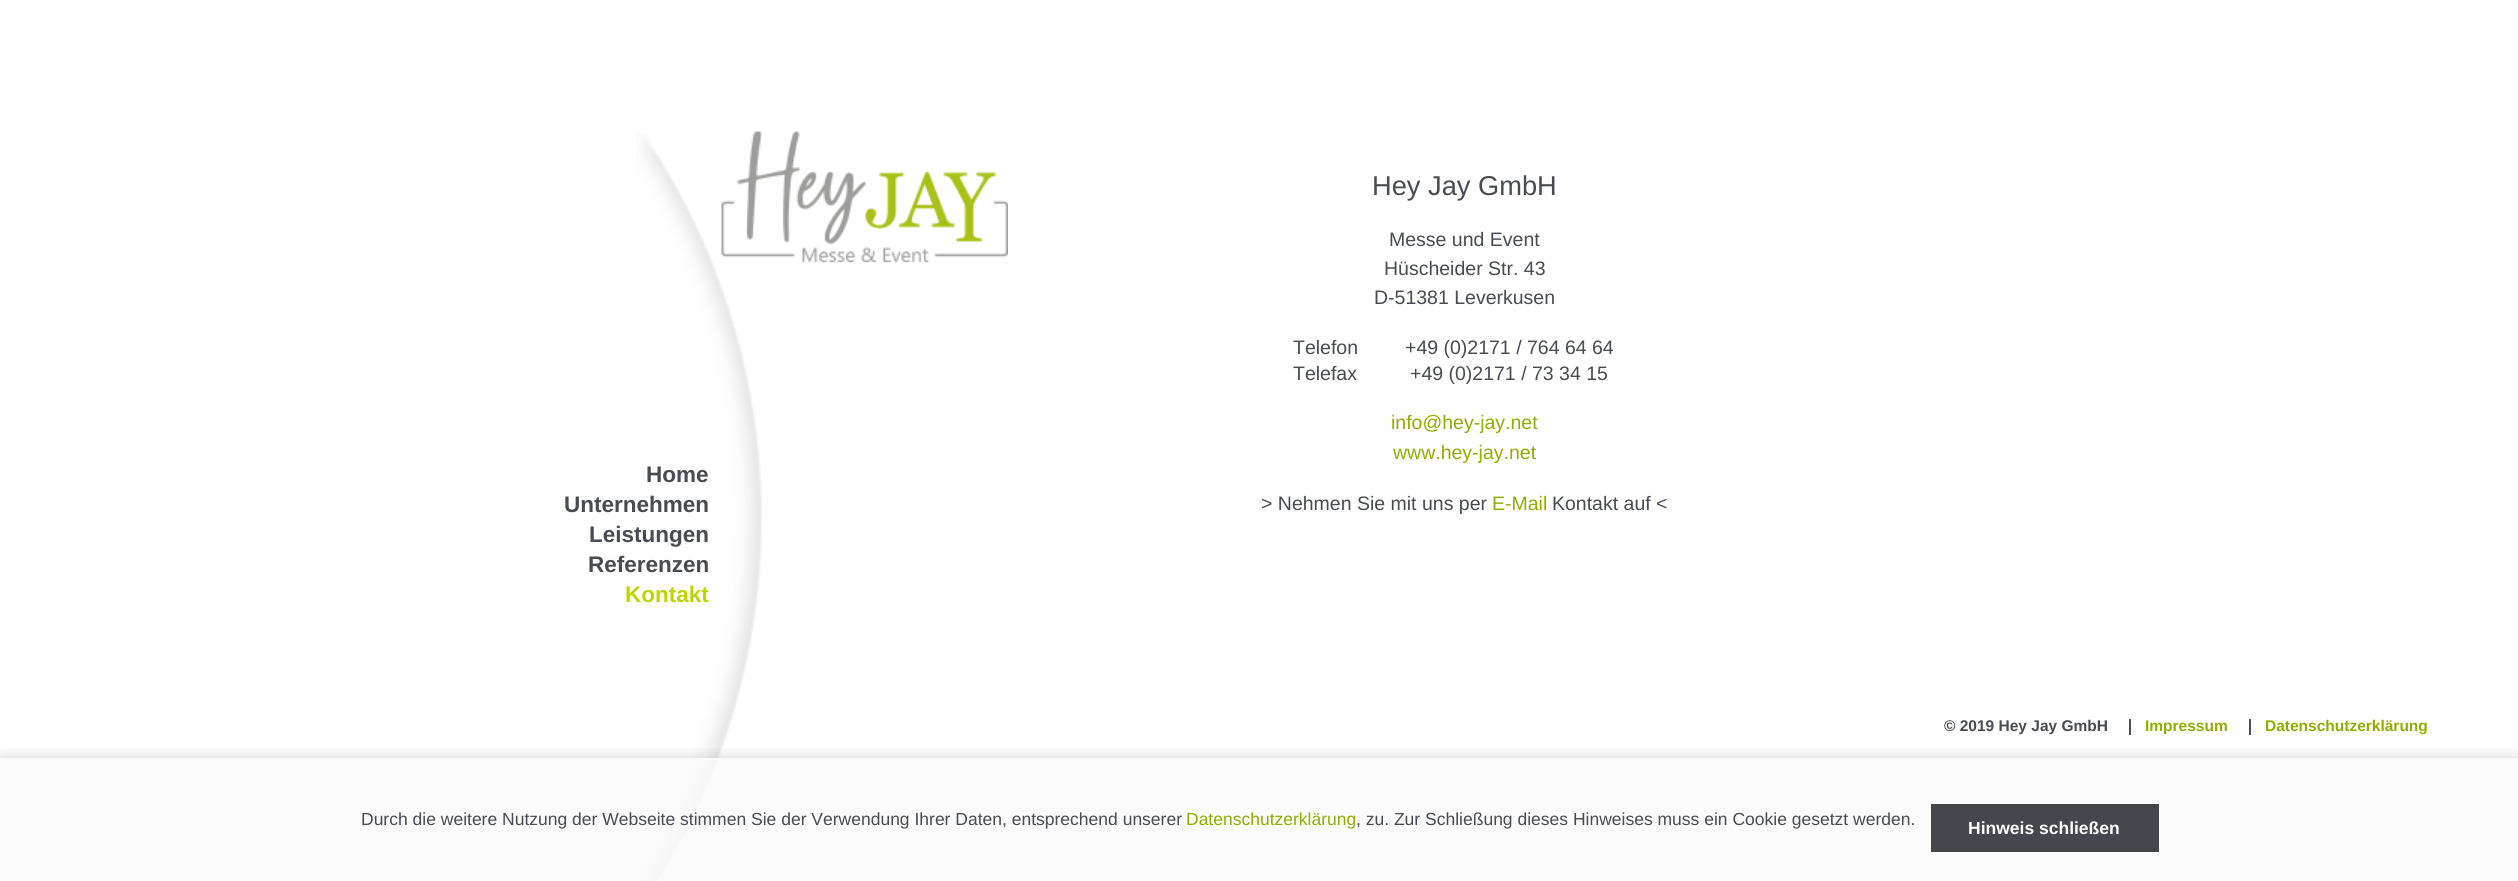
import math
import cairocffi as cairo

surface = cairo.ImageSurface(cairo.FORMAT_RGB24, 2518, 881)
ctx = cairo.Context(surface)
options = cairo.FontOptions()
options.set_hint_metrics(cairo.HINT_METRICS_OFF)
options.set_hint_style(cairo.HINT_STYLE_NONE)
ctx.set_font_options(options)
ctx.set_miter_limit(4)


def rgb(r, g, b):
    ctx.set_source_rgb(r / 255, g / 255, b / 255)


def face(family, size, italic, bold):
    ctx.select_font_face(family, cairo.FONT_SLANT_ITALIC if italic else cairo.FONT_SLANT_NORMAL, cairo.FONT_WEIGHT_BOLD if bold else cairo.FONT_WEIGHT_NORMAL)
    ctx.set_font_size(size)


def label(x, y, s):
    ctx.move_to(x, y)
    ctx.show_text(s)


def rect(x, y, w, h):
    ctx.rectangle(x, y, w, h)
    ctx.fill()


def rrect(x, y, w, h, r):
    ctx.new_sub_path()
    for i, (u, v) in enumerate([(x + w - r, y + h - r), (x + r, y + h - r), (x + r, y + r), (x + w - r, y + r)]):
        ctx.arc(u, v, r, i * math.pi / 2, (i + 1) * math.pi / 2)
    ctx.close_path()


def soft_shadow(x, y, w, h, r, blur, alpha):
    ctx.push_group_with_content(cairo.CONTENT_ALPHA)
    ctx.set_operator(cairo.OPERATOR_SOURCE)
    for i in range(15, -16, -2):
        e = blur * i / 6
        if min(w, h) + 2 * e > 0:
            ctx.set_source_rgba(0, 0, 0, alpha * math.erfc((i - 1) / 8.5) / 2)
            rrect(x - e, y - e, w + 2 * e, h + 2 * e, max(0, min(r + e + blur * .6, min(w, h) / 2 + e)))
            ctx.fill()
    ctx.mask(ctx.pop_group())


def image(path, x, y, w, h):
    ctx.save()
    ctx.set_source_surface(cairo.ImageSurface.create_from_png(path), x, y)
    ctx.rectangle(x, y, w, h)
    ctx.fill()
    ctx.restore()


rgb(255, 255, 255)
ctx.paint()
image('image0.png', 636, 134, 126, 747)
image('image1.png', 721, 131, 287, 132)
face('Liberation Sans', 22.5, 0, 1)
rgb(73, 75, 83)
label(646, 482, 'Home')
label(564, 512, 'Unternehmen')
label(589, 542, 'Leistungen')
label(588, 572, 'Referenzen')
rgb(190, 214, 0)
label(625, 602, 'Kontakt')
face('Liberation Sans', 27.25, 0, 0)
rgb(73, 75, 83)
label(1372, 195, 'Hey Jay GmbH')
face('Liberation Sans', 19.5, 0, 0)
label(1389, 246, 'Messe und Event')
label(1384, 275, 'Hüscheider Str. 43')
label(1374, 304, 'D-51381 Leverkusen')
label(1293, 354, 'Telefon')
label(1405, 354, '+49 (0)2171 / 764 64 64')
label(1293, 380, 'Telefax')
label(1410, 380, '+49 (0)2171 / 73 34 15')
rgb(146, 173, 0)
label(1391, 429, 'info@hey-jay.net')
label(1393, 459, 'www.hey-jay.net')
rgb(73, 75, 83)
label(1261, 510, '> Nehmen Sie mit uns per')
rgb(146, 173, 0)
label(1492, 510, 'E-Mail')
rgb(73, 75, 83)
label(1552, 510, 'Kontakt auf <')
face('Liberation Sans', 15.5, 0, 1)
label(1944, 731, '© 2019 Hey Jay GmbH')
rgb(80, 80, 80)
rect(2129, 719, 2, 16)
rgb(146, 173, 0)
label(2145, 731, 'Impressum')
rgb(80, 80, 80)
rect(2249, 719, 2, 16)
rgb(146, 173, 0)
label(2265, 731, 'Datenschutzerklärung')
ctx.save()
ctx.rectangle(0, 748, 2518, 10)
ctx.clip()
rgb(0, 0, 0)
soft_shadow(0, 765, 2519, 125, 0, 11, 0.3)
ctx.restore()
ctx.set_source_rgba(0.98, 0.98, 0.98, 0.8)
rect(0, 760, 2518, 121)
rgb(250, 250, 250)
rect(0, 758, 2518, 2)
face('Liberation Sans', 17.5, 0, 0)
rgb(73, 75, 83)
label(361, 825, 'Durch die weitere Nutzung der Webseite stimmen Sie der Verwendung Ihrer Daten, entsprechend unserer')
rgb(146, 173, 0)
label(1186, 825, 'Datenschutzerklärung')
rgb(73, 75, 83)
label(1356, 825, ', zu. Zur Schließung dieses Hinweises muss ein Cookie gesetzt werden.')
rgb(70, 70, 77)
rect(1931, 804, 228, 48)
face('Liberation Sans', 17.5, 0, 1)
rgb(255, 255, 255)
label(1968, 834, 'Hinweis schließen')
surface.write_to_png('render.png')
